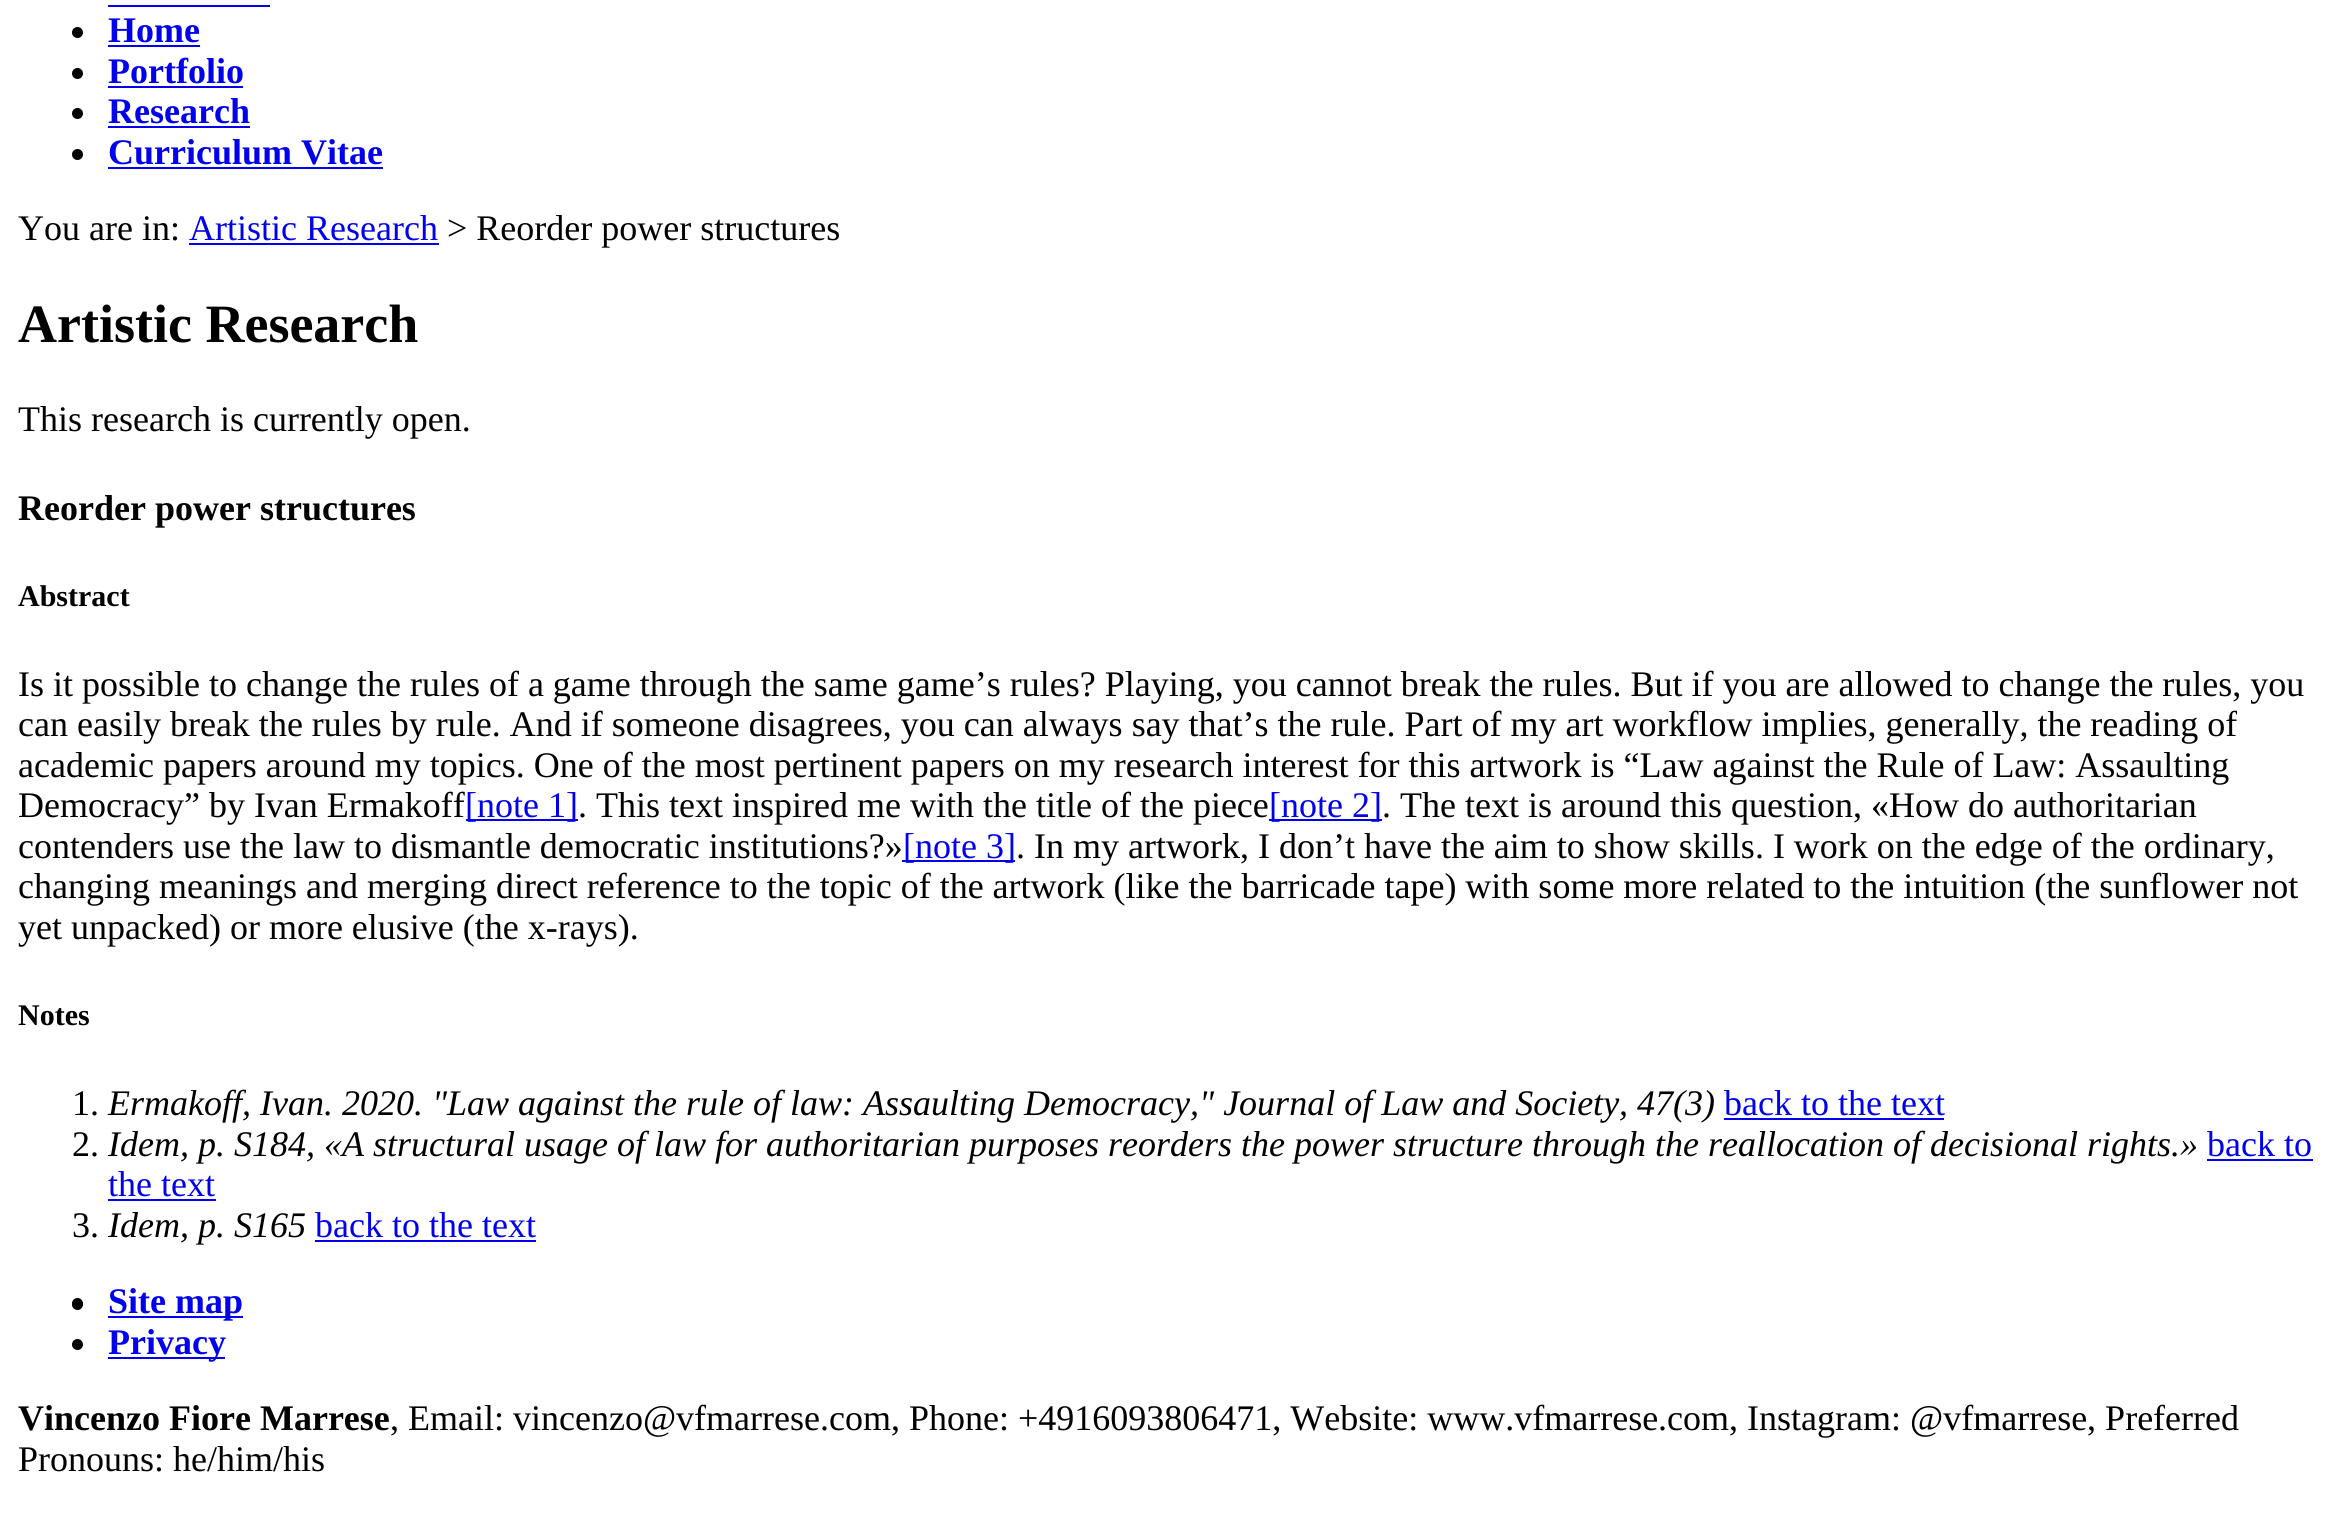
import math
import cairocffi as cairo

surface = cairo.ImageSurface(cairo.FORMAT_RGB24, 2342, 1531)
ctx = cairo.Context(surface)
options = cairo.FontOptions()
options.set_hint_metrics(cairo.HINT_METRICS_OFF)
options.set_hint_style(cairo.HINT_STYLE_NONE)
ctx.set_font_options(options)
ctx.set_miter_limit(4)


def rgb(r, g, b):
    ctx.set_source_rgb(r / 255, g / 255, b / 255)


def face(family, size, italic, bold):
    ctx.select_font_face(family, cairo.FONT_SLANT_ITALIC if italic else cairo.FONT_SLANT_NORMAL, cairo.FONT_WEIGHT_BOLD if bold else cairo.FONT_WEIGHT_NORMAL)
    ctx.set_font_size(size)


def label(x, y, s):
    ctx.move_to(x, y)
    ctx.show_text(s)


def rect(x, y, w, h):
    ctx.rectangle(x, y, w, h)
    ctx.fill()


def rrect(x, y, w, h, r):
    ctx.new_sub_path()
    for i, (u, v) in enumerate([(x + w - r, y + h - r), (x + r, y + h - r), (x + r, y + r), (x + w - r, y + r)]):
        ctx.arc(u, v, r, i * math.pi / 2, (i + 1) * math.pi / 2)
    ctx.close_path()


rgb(255, 255, 255)
ctx.paint()
rgb(0, 0, 238)
rect(108, 5, 162, 2)
rgb(0, 0, 0)
ctx.arc(77.5, 32.5, 5.5, 0, 2 * math.pi)
ctx.fill()
face('Liberation Serif', 36, 0, 1)
rgb(0, 0, 238)
label(108, 42, 'Home')
rect(108, 45, 92, 2)
rgb(0, 0, 0)
ctx.new_path()
ctx.arc(77.5, 73.5, 5.5, 0, 2 * math.pi)
ctx.fill()
rgb(0, 0, 238)
label(108, 83, 'Portfolio')
rect(108, 86, 135, 2)
rgb(0, 0, 0)
ctx.new_path()
ctx.arc(77.5, 113.5, 5.5, 0, 2 * math.pi)
ctx.fill()
rgb(0, 0, 238)
label(108, 123, 'Research')
rect(108, 126, 142, 2)
rgb(0, 0, 0)
ctx.new_path()
ctx.arc(77.5, 154.5, 5.5, 0, 2 * math.pi)
ctx.fill()
rgb(0, 0, 238)
label(108, 164, 'Curriculum Vitae')
rect(108, 167, 275, 2)
face('Liberation Serif', 36, 0, 0)
rgb(0, 0, 0)
label(18, 240, 'You are in:')
rgb(0, 0, 238)
label(189, 240, 'Artistic Research')
rect(189, 243, 250, 2)
rgb(0, 0, 0)
label(447, 240, '> Reorder power structures')
face('Liberation Serif', 54, 0, 1)
label(18, 342, 'Artistic Research')
face('Liberation Serif', 36, 0, 0)
label(18, 431, 'This research is currently open.')
face('Liberation Serif', 36, 0, 1)
label(18, 520, 'Reorder power structures')
face('Liberation Serif', 30, 0, 1)
label(18, 606, 'Abstract')
face('Liberation Serif', 36, 0, 0)
label(18, 696, 'Is it possible to change the rules of a game through the same game’s rules? Playing, you cannot break the rules. But if you are allowed to change the rules, you')
label(18, 736, 'can easily break the rules by rule. And if someone disagrees, you can always say that’s the rule. Part of my art workflow implies, generally, the reading of')
label(18, 777, 'academic papers around my topics. One of the most pertinent papers on my research interest for this artwork is “Law against the Rule of Law: Assaulting')
label(18, 817, 'Democracy” by Ivan Ermakoff')
rgb(0, 0, 238)
rect(466, 819, 112, 2)
label(465, 817, '[note 1]')
rgb(0, 0, 0)
label(578, 817, '. This text inspired me with the title of the piece')
rgb(0, 0, 238)
rect(1269, 819, 113, 2)
label(1269, 817, '[note 2]')
rgb(0, 0, 0)
label(1382, 817, '. The text is around this question, «How do authoritarian')
label(18, 858, 'contenders use the law to dismantle democratic institutions?»')
rgb(0, 0, 238)
rect(902, 860, 113, 2)
label(903, 858, '[note 3]')
rgb(0, 0, 0)
label(1016, 858, '. In my artwork, I don’t have the aim to show skills. I work on the edge of the ordinary,')
label(18, 898, 'changing meanings and merging direct reference to the topic of the artwork (like the barricade tape) with some more related to the intuition (the sunflower not')
label(18, 939, 'yet unpacked) or more elusive (the x-rays).')
face('Liberation Serif', 30, 0, 1)
label(18, 1025, 'Notes')
face('Liberation Serif', 36, 0, 0)
label(72, 1115, '1.')
face('Liberation Serif', 36, 1, 0)
label(108, 1115, 'Ermakoff, Ivan. 2020. "Law against the rule of law: Assaulting Democracy," Journal of Law and Society, 47(3)')
face('Liberation Serif', 36, 0, 0)
rgb(0, 0, 238)
label(1724, 1115, 'back to the text')
rect(1724, 1118, 220, 2)
rgb(0, 0, 0)
label(72, 1156, '2.')
face('Liberation Serif', 36, 1, 0)
label(108, 1156, 'Idem, p. S184, «A structural usage of law for authoritarian purposes reorders the power structure through the reallocation of decisional rights.»')
face('Liberation Serif', 36, 0, 0)
rgb(0, 0, 238)
label(2207, 1156, 'back to')
rect(2207, 1159, 106, 2)
label(108, 1196, 'the text')
rect(108, 1199, 108, 2)
rgb(0, 0, 0)
label(72, 1237, '3.')
face('Liberation Serif', 36, 1, 0)
label(108, 1237, 'Idem, p. S165')
face('Liberation Serif', 36, 0, 0)
rgb(0, 0, 238)
label(315, 1237, 'back to the text')
rect(315, 1240, 221, 2)
rgb(0, 0, 0)
rrect(72, 1298, 11, 12, 5.5)
ctx.fill()
rgb(0, 0, 238)
rect(108, 1316, 135, 2)
face('Liberation Serif', 36, 0, 1)
label(108, 1313, 'Site map')
rgb(0, 0, 0)
ctx.new_path()
ctx.arc(77.5, 1344.5, 5.5, 0, 2 * math.pi)
ctx.fill()
rgb(0, 0, 238)
rect(108, 1357, 117, 2)
label(108, 1354, 'Privacy')
rgb(0, 0, 0)
label(18, 1430, 'Vincenzo Fiore Marrese')
face('Liberation Serif', 36, 0, 0)
label(390, 1430, ', Email: vincenzo@vfmarrese.com, Phone: +4916093806471, Website: www.vfmarrese.com, Instagram: @vfmarrese, Preferred')
label(18, 1471, 'Pronouns: he/him/his')
surface.write_to_png('render.png')
